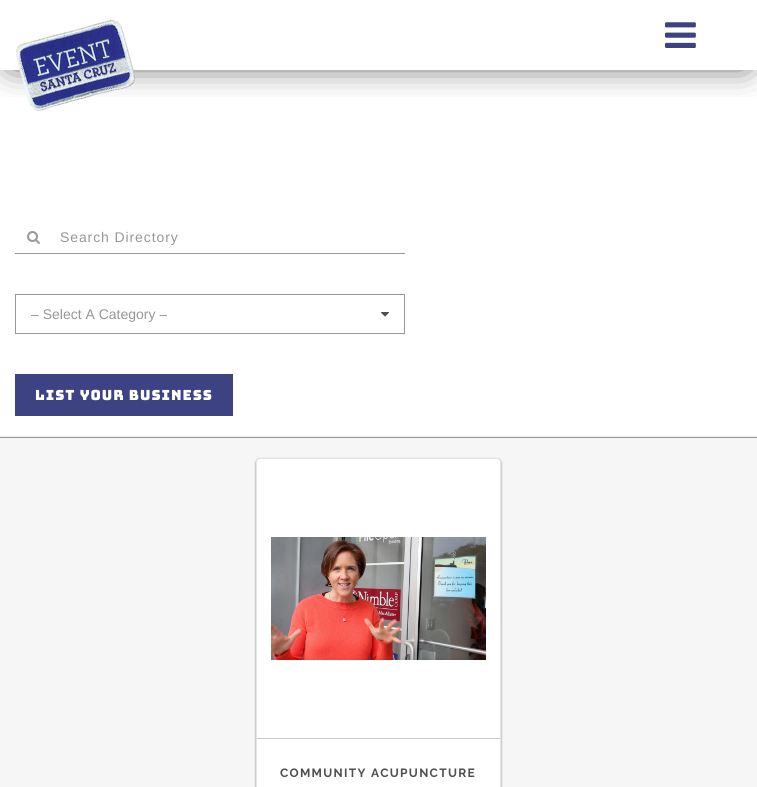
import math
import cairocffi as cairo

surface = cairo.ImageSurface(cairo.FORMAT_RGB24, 757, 787)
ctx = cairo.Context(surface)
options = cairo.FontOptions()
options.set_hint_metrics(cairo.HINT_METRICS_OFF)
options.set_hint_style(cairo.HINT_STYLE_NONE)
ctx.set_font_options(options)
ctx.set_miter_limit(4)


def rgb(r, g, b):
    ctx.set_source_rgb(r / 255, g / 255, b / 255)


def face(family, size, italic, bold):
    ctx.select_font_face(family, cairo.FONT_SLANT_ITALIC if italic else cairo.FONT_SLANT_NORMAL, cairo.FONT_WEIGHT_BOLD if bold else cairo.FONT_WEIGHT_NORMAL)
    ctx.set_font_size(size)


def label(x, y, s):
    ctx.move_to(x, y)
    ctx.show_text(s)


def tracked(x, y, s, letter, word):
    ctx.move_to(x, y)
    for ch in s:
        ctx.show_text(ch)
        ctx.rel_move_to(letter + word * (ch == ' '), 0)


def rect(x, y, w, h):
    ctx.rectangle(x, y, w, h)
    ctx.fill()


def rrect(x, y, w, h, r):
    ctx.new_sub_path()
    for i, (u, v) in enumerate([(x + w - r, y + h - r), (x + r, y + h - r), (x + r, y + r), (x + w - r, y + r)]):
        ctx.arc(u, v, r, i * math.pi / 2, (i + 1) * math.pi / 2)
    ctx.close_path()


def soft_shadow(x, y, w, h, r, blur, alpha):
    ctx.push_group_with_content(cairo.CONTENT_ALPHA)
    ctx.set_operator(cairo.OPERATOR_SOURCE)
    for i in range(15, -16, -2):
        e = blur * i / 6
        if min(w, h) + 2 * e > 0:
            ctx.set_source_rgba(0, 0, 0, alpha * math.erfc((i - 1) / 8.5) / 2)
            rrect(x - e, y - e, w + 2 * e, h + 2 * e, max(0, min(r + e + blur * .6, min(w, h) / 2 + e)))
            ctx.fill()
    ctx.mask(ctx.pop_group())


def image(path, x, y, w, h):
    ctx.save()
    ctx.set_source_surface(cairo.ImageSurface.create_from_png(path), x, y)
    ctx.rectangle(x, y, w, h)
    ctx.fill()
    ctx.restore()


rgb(255, 255, 255)
ctx.paint()
ctx.save()
ctx.rectangle(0, 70, 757, 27)
ctx.clip()
rgb(0, 0, 0)
soft_shadow(11, 16, 735, 48, 0, 17, 0.75)
ctx.restore()
image('image0.png', 16, 19, 119, 92)
image('image1.png', 665, 22, 31, 26)
rgb(151, 151, 151)
rect(15, 253, 390, 1)
image('image2.png', 27, 231, 13, 13)
face('Liberation Sans', 14, 0, 0)
tracked(60, 242, 'Search Directory', 0.9, 0)
ctx.rectangle(15.5, 294.5, 389, 39)
ctx.set_line_width(1)
ctx.stroke()
label(31, 319, '– Select A Category –')
image('image3.png', 381, 312, 8, 5)
rgb(61, 66, 130)
rect(15, 374, 218, 42)
face('Bungee', 14, 0, 0)
rgb(255, 255, 255)
tracked(35, 400, 'LIST YOUR BUSINESS', 1, 0)
rgb(151, 151, 151)
rect(0, 437, 757, 1)
rgb(238, 238, 238)
rect(0, 436, 757, 1)
rgb(246, 246, 246)
rect(0, 438, 757, 349)
rgb(0, 0, 0)
soft_shadow(256, 459, 245, 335, 4, 1, 0.5)
rgb(255, 255, 255)
rrect(256.5, 458.5, 244, 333, 3.5)
ctx.fill_preserve()
rgb(229, 229, 229)
ctx.stroke()
rgb(204, 204, 204)
rect(257, 738, 243, 1)
image('image4.png', 271, 537, 215, 123)
face('Raleway', 12, 0, 1)
rgb(79, 79, 79)
tracked(280, 777, 'COMMUNITY ACUPUNCTURE', 1.3, 0)
surface.write_to_png('render.png')
